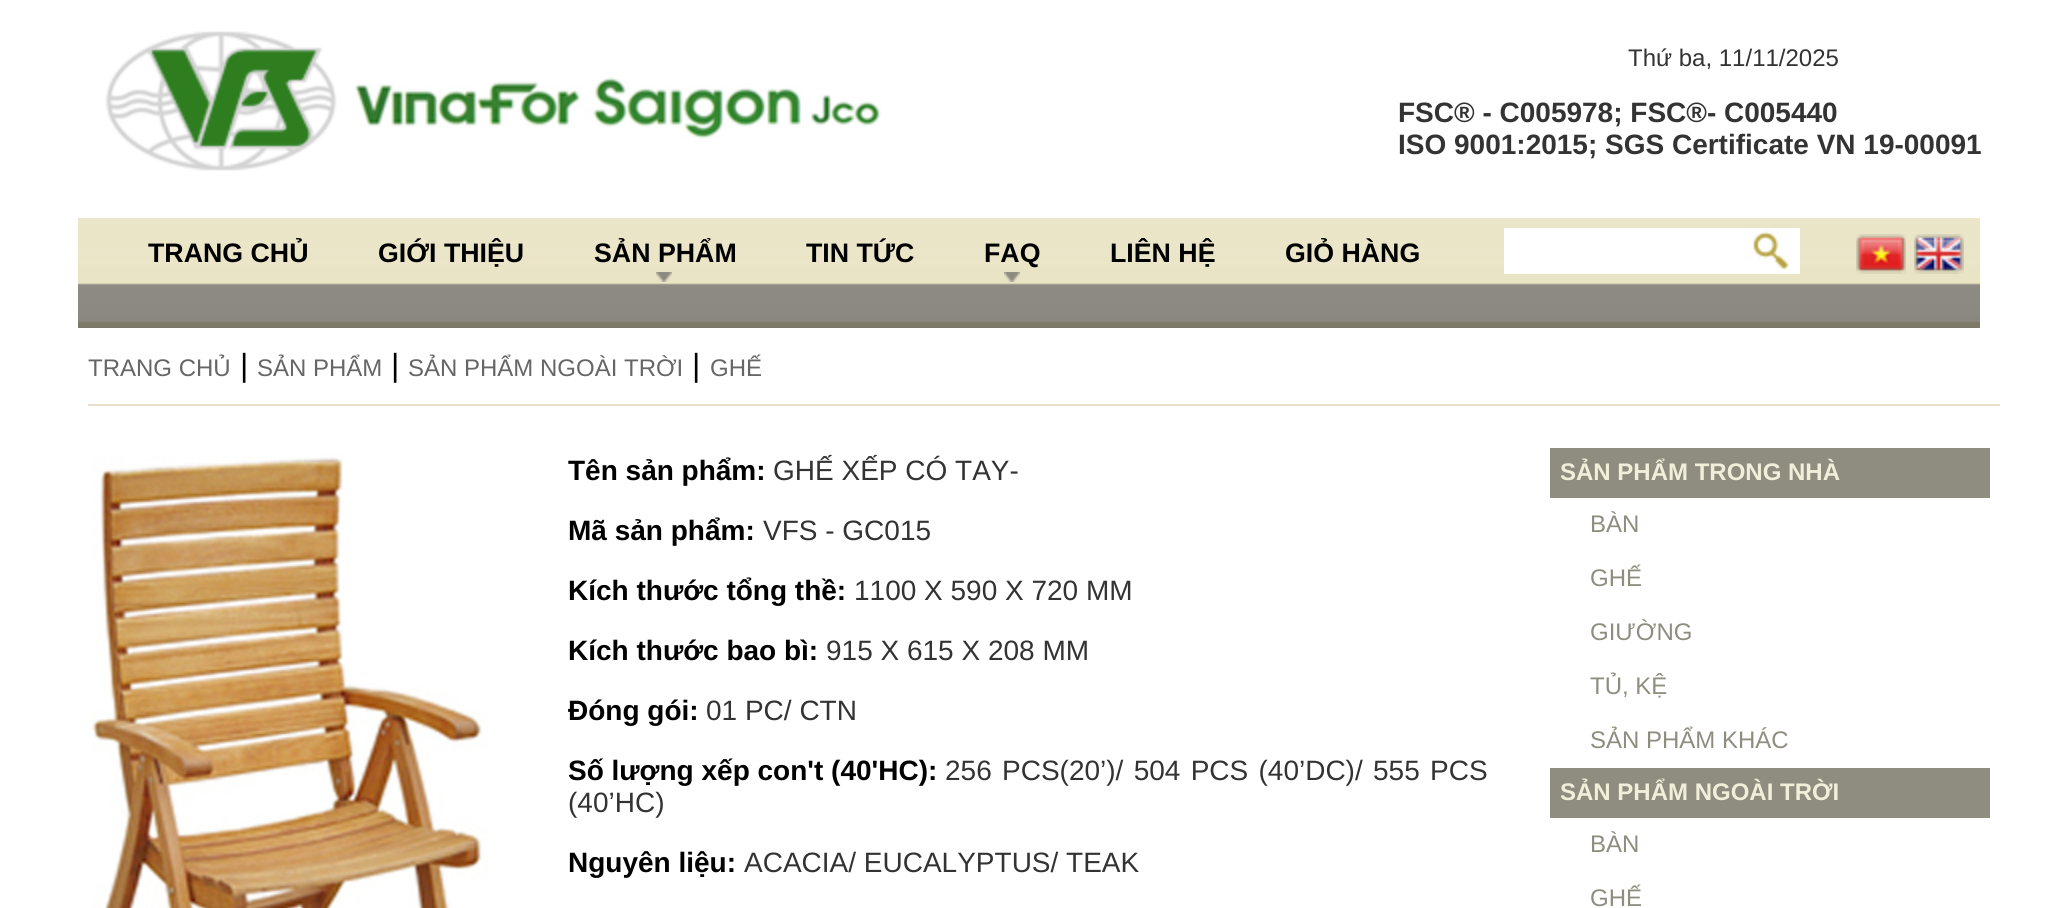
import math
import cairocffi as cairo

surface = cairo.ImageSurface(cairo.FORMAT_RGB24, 2059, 908)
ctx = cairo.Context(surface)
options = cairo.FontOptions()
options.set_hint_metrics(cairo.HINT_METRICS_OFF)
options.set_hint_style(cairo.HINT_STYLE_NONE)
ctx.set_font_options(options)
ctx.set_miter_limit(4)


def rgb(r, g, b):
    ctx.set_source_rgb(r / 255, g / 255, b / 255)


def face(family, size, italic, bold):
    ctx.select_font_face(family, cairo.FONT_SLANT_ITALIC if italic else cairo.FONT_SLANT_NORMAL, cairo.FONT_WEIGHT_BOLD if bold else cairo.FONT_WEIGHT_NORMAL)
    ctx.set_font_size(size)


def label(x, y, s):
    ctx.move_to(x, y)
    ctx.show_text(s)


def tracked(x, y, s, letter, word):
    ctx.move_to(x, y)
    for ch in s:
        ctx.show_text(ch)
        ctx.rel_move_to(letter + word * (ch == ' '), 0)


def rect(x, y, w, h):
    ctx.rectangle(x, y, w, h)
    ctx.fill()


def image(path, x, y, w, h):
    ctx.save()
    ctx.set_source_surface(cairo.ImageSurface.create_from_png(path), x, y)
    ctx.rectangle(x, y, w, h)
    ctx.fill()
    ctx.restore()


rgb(255, 255, 255)
ctx.paint()
image('image0.png', 105, 31, 776, 140)
face('Liberation Sans', 24, 0, 0)
rgb(51, 51, 51)
label(1628, 66, 'Thứ ba, 11/11/2025')
face('Liberation Sans', 28, 0, 1)
label(1398, 122, 'FSC® - C005978; FSC®- C005440')
label(1398, 154, 'ISO 9001:2015; SGS Certificate VN 19-00091')
image('image1.png', 78, 218, 1902, 110)
face('Liberation Sans', 26.75, 0, 1)
rgb(0, 0, 0)
label(148, 262, 'TRANG CHỦ')
label(378, 262, 'GIỚI THIỆU')
image('image2.png', 656, 272, 16, 10)
label(594, 262, 'SẢN PHẨM')
label(806, 262, 'TIN TỨC')
image('image2.png', 1004, 272, 16, 10)
label(984, 262, 'FAQ')
label(1110, 262, 'LIÊN HỆ')
label(1285, 262, 'GIỎ HÀNG')
image('image3.png', 1504, 228, 296, 46)
image('image4.png', 1856, 234, 50, 40)
image('image5.png', 1914, 234, 50, 40)
rgb(233, 224, 204)
rect(88, 404, 1912, 2)
face('Liberation Sans', 24, 0, 0)
rgb(102, 102, 102)
label(88, 376, 'TRANG CHỦ')
face('Liberation Sans', 32, 0, 0)
rgb(0, 0, 0)
label(240, 376, '|')
face('Liberation Sans', 24, 0, 0)
rgb(102, 102, 102)
label(257, 376, 'SẢN PHẨM')
face('Liberation Sans', 32, 0, 0)
rgb(0, 0, 0)
label(391, 376, '|')
face('Liberation Sans', 24, 0, 0)
rgb(102, 102, 102)
label(408, 376, 'SẢN PHẨM NGOÀI TRỜI')
face('Liberation Sans', 32, 0, 0)
rgb(0, 0, 0)
label(692, 376, '|')
face('Liberation Sans', 24, 0, 0)
rgb(102, 102, 102)
label(710, 376, 'GHẾ')
image('image6.png', 92, 454, 396, 454)
face('Liberation Sans', 28, 0, 1)
rgb(0, 0, 0)
label(568, 480, 'Tên sản phẩm:')
face('Liberation Sans', 28, 0, 0)
rgb(51, 51, 51)
label(773, 480, 'GHẾ XẾP CÓ TAY-')
face('Liberation Sans', 28, 0, 1)
rgb(0, 0, 0)
label(568, 540, 'Mã sản phẩm:')
face('Liberation Sans', 28, 0, 0)
rgb(51, 51, 51)
label(763, 540, 'VFS - GC015')
face('Liberation Sans', 28, 0, 1)
rgb(0, 0, 0)
label(568, 600, 'Kích thước tổng thề:')
face('Liberation Sans', 28, 0, 0)
rgb(51, 51, 51)
label(854, 600, '1100 X 590 X 720 MM')
face('Liberation Sans', 28, 0, 1)
rgb(0, 0, 0)
label(568, 660, 'Kích thước bao bì:')
face('Liberation Sans', 28, 0, 0)
rgb(51, 51, 51)
label(826, 660, '915 X 615 X 208 MM')
face('Liberation Sans', 28, 0, 1)
rgb(0, 0, 0)
label(568, 720, 'Đóng gói:')
face('Liberation Sans', 28, 0, 0)
rgb(51, 51, 51)
label(706, 720, '01 PC/ CTN')
face('Liberation Sans', 28, 0, 1)
rgb(0, 0, 0)
label(568, 780, 'Số lượng xếp con\'t (40\'HC):')
face('Liberation Sans', 28, 0, 0)
rgb(51, 51, 51)
tracked(945, 780, '256 PCS(20’)/ 504 PCS (40’DC)/ 555 PCS', 0, 2.5)
label(568, 812, '(40’HC)')
face('Liberation Sans', 28, 0, 1)
rgb(0, 0, 0)
label(568, 872, 'Nguyên liệu:')
face('Liberation Sans', 28, 0, 0)
rgb(51, 51, 51)
label(744, 872, 'ACACIA/ EUCALYPTUS/ TEAK')
rgb(142, 141, 127)
rect(1550, 448, 440, 50)
face('Liberation Sans', 24, 0, 1)
rgb(241, 238, 218)
label(1560, 480, 'SẢN PHẨM TRONG NHÀ')
face('Liberation Sans', 24, 0, 0)
rgb(142, 141, 127)
label(1590, 532, 'BÀN')
label(1590, 586, 'GHẾ')
label(1590, 640, 'GIƯỜNG')
label(1590, 694, 'TỦ, KỆ')
label(1590, 748, 'SẢN PHẨM KHÁC')
rect(1550, 768, 440, 50)
face('Liberation Sans', 24, 0, 1)
rgb(241, 238, 218)
label(1560, 800, 'SẢN PHẨM NGOÀI TRỜI')
face('Liberation Sans', 24, 0, 0)
rgb(142, 141, 127)
label(1590, 852, 'BÀN')
label(1590, 906, 'GHẾ')
surface.write_to_png('render.png')
